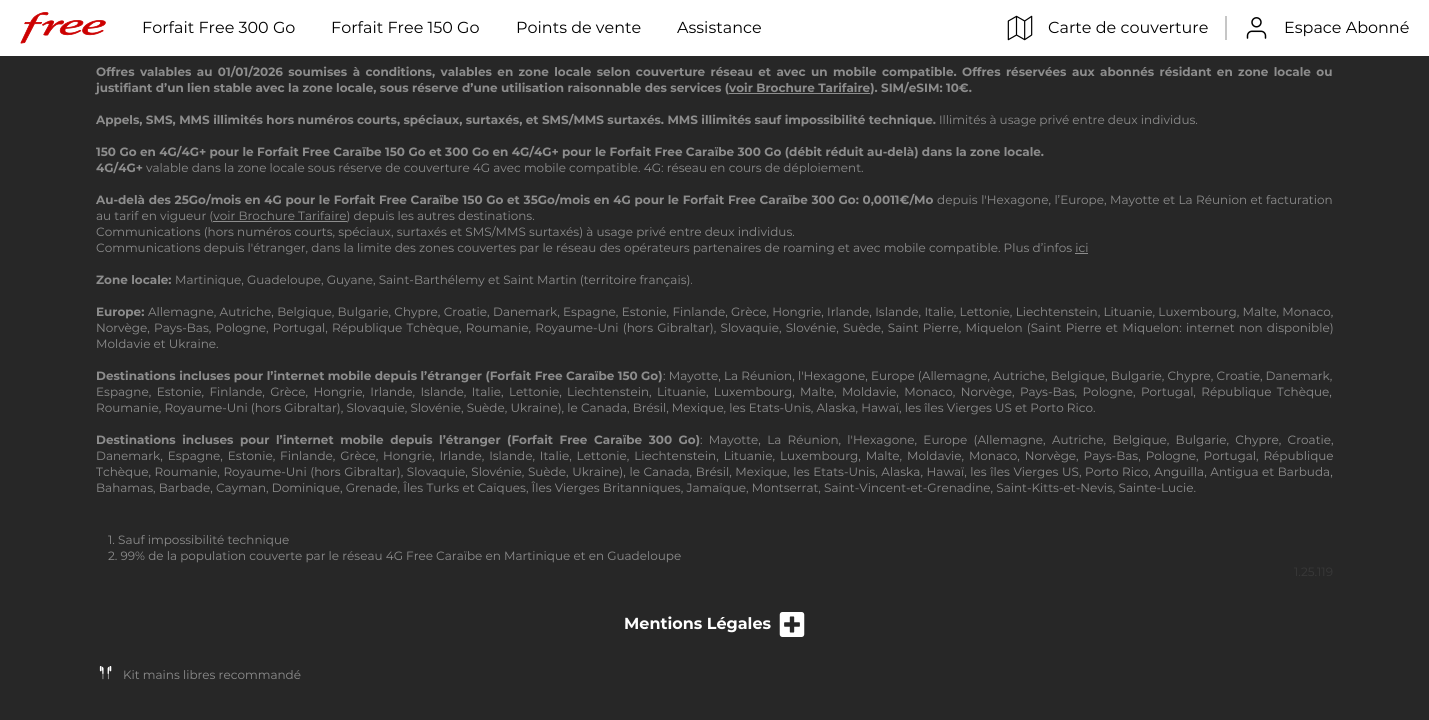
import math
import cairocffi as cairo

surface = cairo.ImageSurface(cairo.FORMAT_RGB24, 1429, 720)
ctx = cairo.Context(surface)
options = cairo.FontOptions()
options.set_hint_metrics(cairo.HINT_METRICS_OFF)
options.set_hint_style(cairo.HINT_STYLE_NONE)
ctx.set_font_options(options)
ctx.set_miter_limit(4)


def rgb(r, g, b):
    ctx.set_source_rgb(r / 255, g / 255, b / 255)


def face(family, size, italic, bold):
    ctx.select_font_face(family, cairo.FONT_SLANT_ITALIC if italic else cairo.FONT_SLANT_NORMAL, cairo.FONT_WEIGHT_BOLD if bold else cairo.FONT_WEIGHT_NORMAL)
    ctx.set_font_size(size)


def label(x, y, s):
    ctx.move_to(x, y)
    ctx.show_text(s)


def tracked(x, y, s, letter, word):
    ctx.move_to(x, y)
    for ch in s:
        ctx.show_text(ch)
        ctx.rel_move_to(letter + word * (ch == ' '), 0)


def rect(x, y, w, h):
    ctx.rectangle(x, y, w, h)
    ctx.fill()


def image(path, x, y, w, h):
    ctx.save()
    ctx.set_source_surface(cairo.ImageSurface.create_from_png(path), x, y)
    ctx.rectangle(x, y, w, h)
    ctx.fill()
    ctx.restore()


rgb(39, 39, 39)
ctx.paint()
rgb(255, 255, 255)
rect(0, 0, 1429, 56)
image('image0.png', 20, 12, 86, 32)
face('Montserrat', 16, 0, 0)
rgb(0, 0, 0)
label(142, 33, 'Forfait Free 300 Go')
label(331, 33, 'Forfait Free 150 Go')
label(516, 33, 'Points de vente')
label(677, 33, 'Assistance')
image('image1.png', 1007, 15, 26, 26)
label(1048, 33, 'Carte de couverture')
rgb(198, 198, 198)
rect(1225, 16, 2, 24)
image('image2.png', 1246, 17, 21, 22)
rgb(0, 0, 0)
label(1284, 33, 'Espace Abonné')
face('Montserrat', 12, 0, 1)
rgb(141, 141, 141)
tracked(96, 76, 'Offres valables au 01/01/2026 soumises à conditions, valables en zone locale selon couverture réseau et avec un mobile compatible. Offres réservées aux abonnés résidant en zone locale ou', 0, 2)
label(96, 92, 'justifiant d’un lien stable avec la zone locale, sous réserve d’une utilisation raisonnable des services (voir Brochure Tarifaire). SIM/eSIM: 10€.')
rect(729, 93, 141, 1)
label(96, 124, 'Appels, SMS, MMS illimités hors numéros courts, spéciaux, surtaxés, et SMS/MMS surtaxés. MMS illimités sauf impossibilité technique.')
face('Montserrat', 12, 0, 0)
label(939, 124, 'Illimités à usage privé entre deux individus.')
face('Montserrat', 12, 0, 1)
label(96, 156, '150 Go en 4G/4G+ pour le Forfait Free Caraïbe 150 Go et 300 Go en 4G/4G+ pour le Forfait Free Caraïbe 300 Go (débit réduit au-delà) dans la zone locale.')
label(96, 172, '4G/4G+')
face('Montserrat', 12, 0, 0)
label(146, 172, 'valable dans la zone locale sous réserve de couverture 4G avec mobile compatible. 4G: réseau en cours de déploiement.')
face('Montserrat', 12, 0, 1)
tracked(96, 204, 'Au-delà des 25Go/mois en 4G pour le Forfait Free Caraïbe 150 Go et 35Go/mois en 4G pour le Forfait Free Caraïbe 300 Go: 0,0011€/Mo', 0, 0.3)
face('Montserrat', 12, 0, 0)
tracked(937, 204, 'depuis l\'Hexagone, l’Europe, Mayotte et La Réunion et facturation', 0, 0.3)
label(96, 220, 'au tarif en vigueur (voir Brochure Tarifaire) depuis les autres destinations.')
rect(213, 221, 134, 1)
label(96, 236, 'Communications (hors numéros courts, spéciaux, surtaxés et SMS/MMS surtaxés) à usage privé entre deux individus.')
label(96, 252, 'Communications depuis l\'étranger, dans la limite des zones couvertes par le réseau des opérateurs partenaires de roaming et avec mobile compatible. Plus d’infos ici')
rect(1075, 253, 13, 1)
face('Montserrat', 12, 0, 1)
label(96, 284, 'Zone locale:')
face('Montserrat', 12, 0, 0)
label(175, 284, 'Martinique, Guadeloupe, Guyane, Saint-Barthélemy et Saint Martin (territoire français).')
face('Montserrat', 12, 0, 1)
label(96, 316, 'Europe:')
face('Montserrat', 12, 0, 0)
tracked(148, 316, 'Allemagne, Autriche, Belgique, Bulgarie, Chypre, Croatie, Danemark, Espagne, Estonie, Finlande, Grèce, Hongrie, Irlande, Islande, Italie, Lettonie, Liechtenstein, Lituanie, Luxembourg, Malte, Monaco,', 0, 0.2)
tracked(96, 332, 'Norvège, Pays-Bas, Pologne, Portugal, République Tchèque, Roumanie, Royaume-Uni (hors Gibraltar), Slovaquie, Slovénie, Suède, Saint Pierre, Miquelon (Saint Pierre et Miquelon: internet non disponible)', 0, 1.1)
label(96, 348, 'Moldavie et Ukraine.')
face('Montserrat', 12, 0, 1)
label(96, 380, 'Destinations incluses pour l’internet mobile depuis l’étranger (Forfait Free Caraïbe 150 Go)')
face('Montserrat', 12, 0, 0)
label(663, 380, ': Mayotte, La Réunion, l\'Hexagone, Europe (Allemagne, Autriche, Belgique, Bulgarie, Chypre, Croatie, Danemark,')
tracked(96, 396, 'Espagne, Estonie, Finlande, Grèce, Hongrie, Irlande, Islande, Italie, Lettonie, Liechtenstein, Lituanie, Luxembourg, Malte, Moldavie, Monaco, Norvège, Pays-Bas, Pologne, Portugal, République Tchèque,', 0, 2.25)
label(96, 412, 'Roumanie, Royaume-Uni (hors Gibraltar), Slovaquie, Slovénie, Suède, Ukraine), le Canada, Brésil, Mexique, les Etats-Unis, Alaska, Hawaï, les îles Vierges US et Porto Rico.')
face('Montserrat', 12, 0, 1)
tracked(96, 444, 'Destinations incluses pour l’internet mobile depuis l’étranger (Forfait Free Caraïbe 300 Go)', 0, 3.1)
face('Montserrat', 12, 0, 0)
tracked(700, 444, ': Mayotte, La Réunion, l\'Hexagone, Europe (Allemagne, Autriche, Belgique, Bulgarie, Chypre, Croatie,', 0, 3.1)
tracked(96, 460, 'Danemark, Espagne, Estonie, Finlande, Grèce, Hongrie, Irlande, Islande, Italie, Lettonie, Liechtenstein, Lituanie, Luxembourg, Malte, Moldavie, Monaco, Norvège, Pays-Bas, Pologne, Portugal, République', 0, 1.75)
tracked(96, 476, 'Tchèque, Roumanie, Royaume-Uni (hors Gibraltar), Slovaquie, Slovénie, Suède, Ukraine), le Canada, Brésil, Mexique, les Etats-Unis, Alaska, Hawaï, les îles Vierges US, Porto Rico, Anguilla, Antigua et Barbuda,', 0, 0.45)
label(96, 492, 'Bahamas, Barbade, Cayman, Dominique, Grenade, Îles Turks et Caïques, Îles Vierges Britanniques, Jamaïque, Montserrat, Saint-Vincent-et-Grenadine, Saint-Kitts-et-Nevis, Sainte-Lucie.')
label(108, 544, '1. Sauf impossibilité technique')
label(108, 560, '2. 99% de la population couverte par le réseau 4G Free Caraïbe en Martinique et en Guadeloupe')
rgb(57, 57, 57)
label(1294, 576, '1.25.119')
face('Montserrat', 16, 0, 1)
rgb(255, 255, 255)
label(624, 629, 'Mentions Légales')
image('image3.png', 779, 612, 26, 25)
image('image4.png', 99, 666, 13, 14)
face('Montserrat', 12, 0, 0)
rgb(141, 141, 141)
label(123, 679, 'Kit mains libres recommandé')
surface.write_to_png('render.png')
